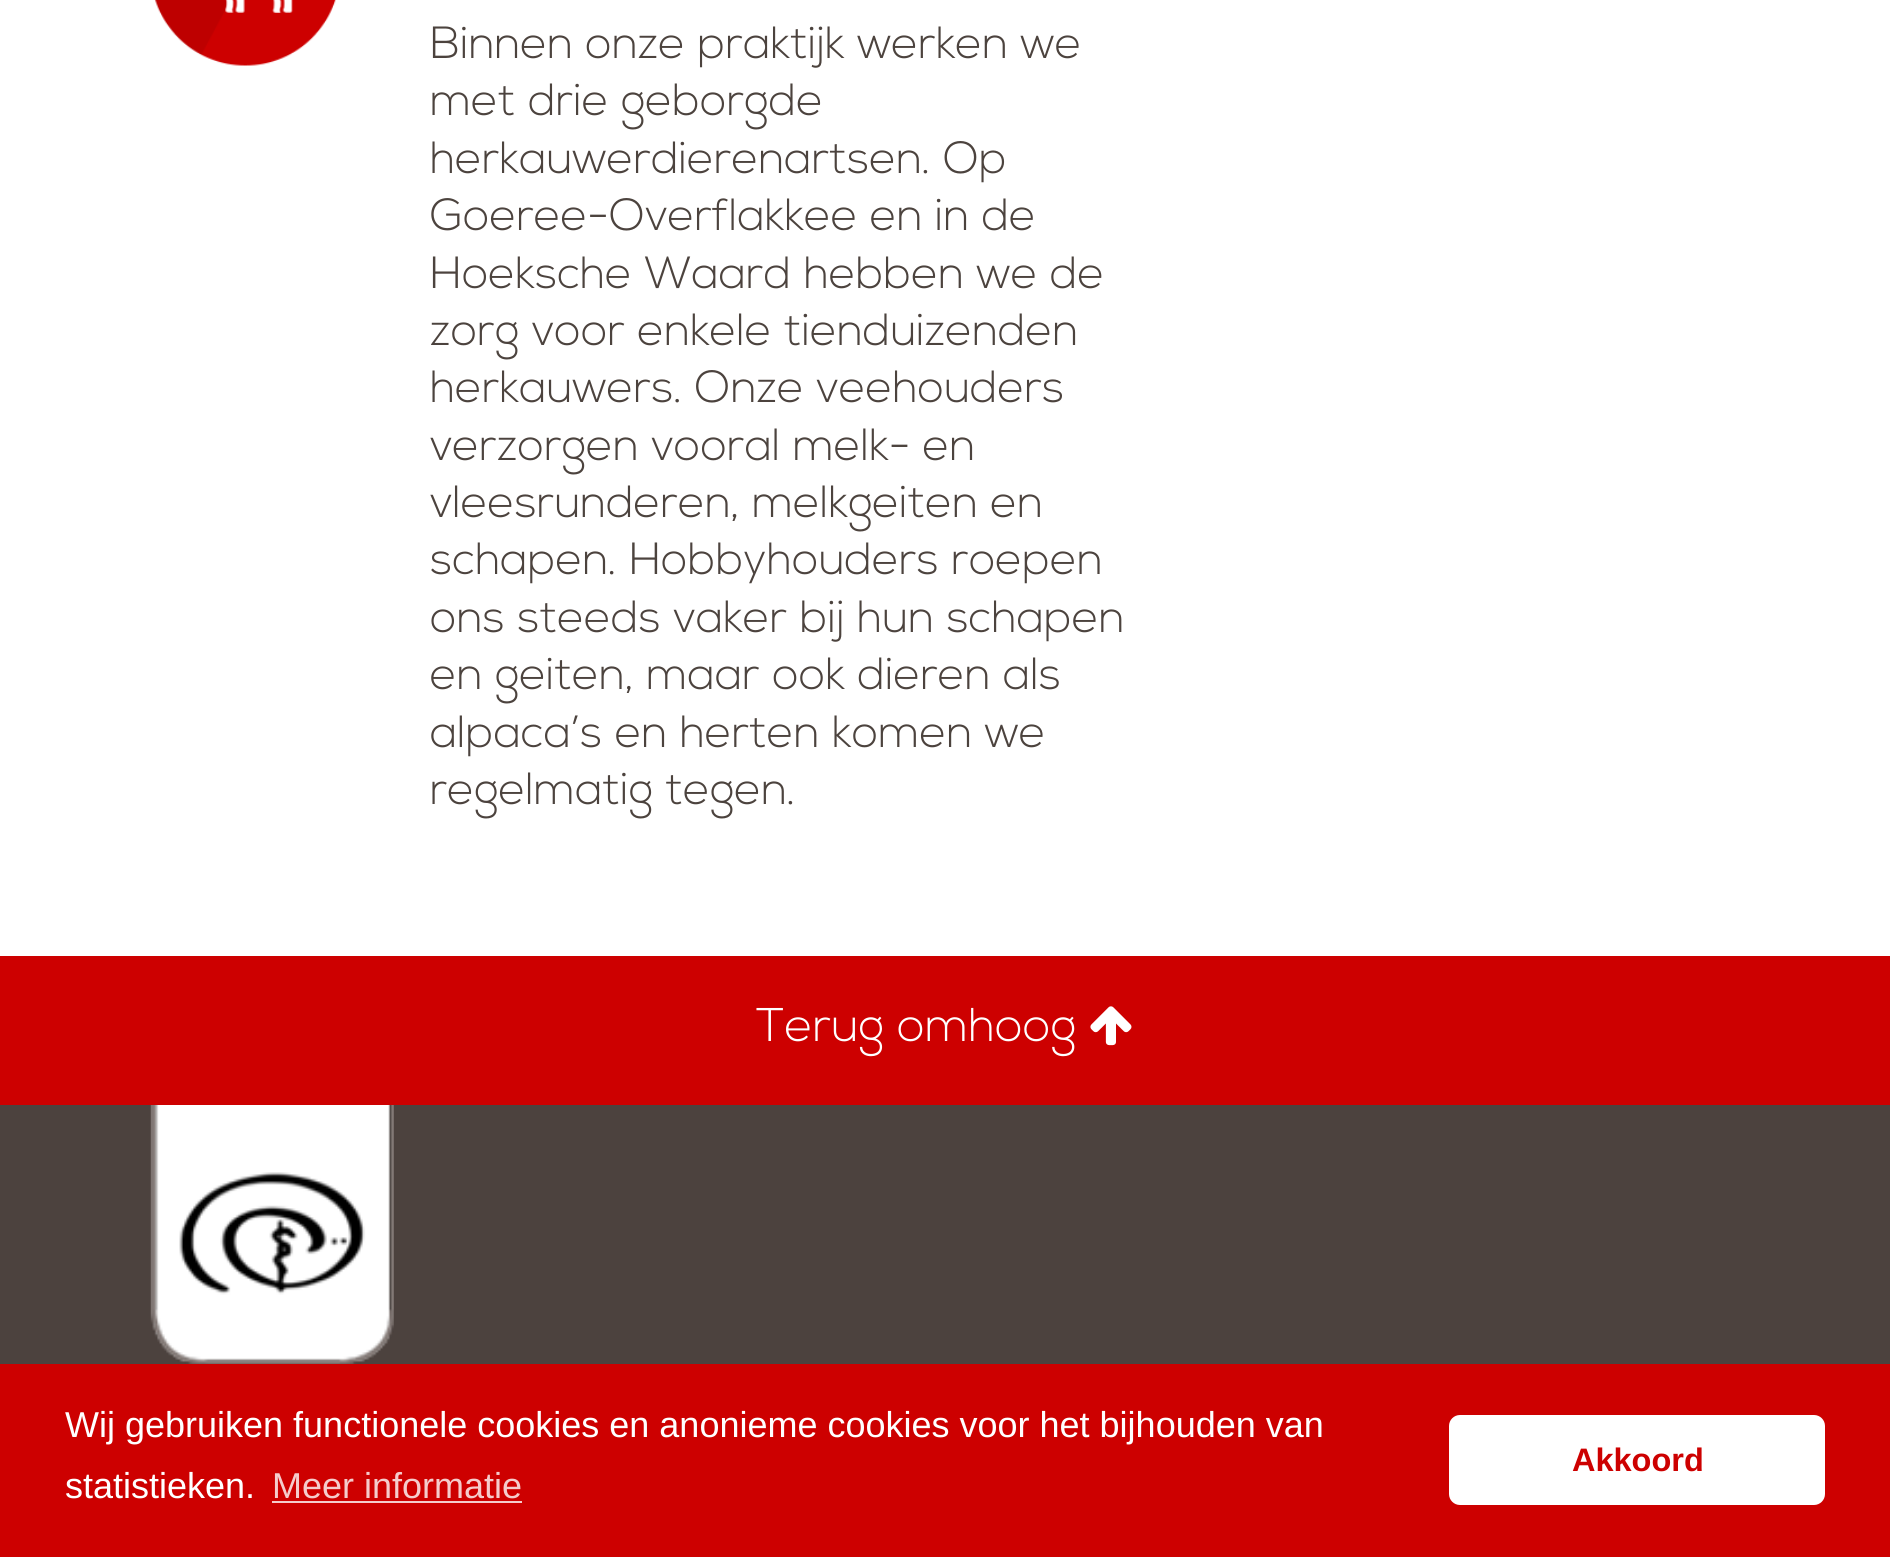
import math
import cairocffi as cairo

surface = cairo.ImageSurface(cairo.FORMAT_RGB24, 1890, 1557)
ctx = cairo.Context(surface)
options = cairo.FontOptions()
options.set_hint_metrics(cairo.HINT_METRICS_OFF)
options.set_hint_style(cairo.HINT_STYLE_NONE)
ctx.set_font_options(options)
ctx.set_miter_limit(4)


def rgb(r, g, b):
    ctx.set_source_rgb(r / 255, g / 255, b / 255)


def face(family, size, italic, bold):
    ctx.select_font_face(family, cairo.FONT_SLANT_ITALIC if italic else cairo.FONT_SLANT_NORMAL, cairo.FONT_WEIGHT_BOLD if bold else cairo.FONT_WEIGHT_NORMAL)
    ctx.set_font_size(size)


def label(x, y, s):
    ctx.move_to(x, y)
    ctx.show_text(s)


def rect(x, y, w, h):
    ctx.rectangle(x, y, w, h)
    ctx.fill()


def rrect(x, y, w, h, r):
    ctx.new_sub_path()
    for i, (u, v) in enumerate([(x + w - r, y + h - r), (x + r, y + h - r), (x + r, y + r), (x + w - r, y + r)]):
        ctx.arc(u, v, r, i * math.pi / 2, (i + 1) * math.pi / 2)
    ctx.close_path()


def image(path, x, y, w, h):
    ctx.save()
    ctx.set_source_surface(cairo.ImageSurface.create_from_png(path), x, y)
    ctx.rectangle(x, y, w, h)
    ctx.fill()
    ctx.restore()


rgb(255, 255, 255)
ctx.paint()
image('image0.png', 154, 0, 182, 66)
face('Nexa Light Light', 45, 0, 0)
rgb(76, 67, 62)
label(430, 58, 'Binnen onze praktijk werken we')
label(430, 115, 'met drie geborgde')
label(430, 173, 'herkauwerdierenartsen. Op')
label(430, 230, 'Goeree-Overflakkee en in de')
label(430, 288, 'Hoeksche Waard hebben we de')
label(430, 345, 'zorg voor enkele tienduizenden')
label(430, 402, 'herkauwers. Onze veehouders')
label(430, 460, 'verzorgen vooral melk- en')
label(430, 517, 'vleesrunderen, melkgeiten en')
label(430, 574, 'schapen. Hobbyhouders roepen')
label(430, 632, 'ons steeds vaker bij hun schapen')
label(430, 689, 'en geiten, maar ook dieren als')
label(430, 747, 'alpaca’s en herten komen we')
label(430, 804, 'regelmatig tegen.')
rgb(205, 0, 0)
rect(0, 956, 1890, 149)
face('Nexa Light Light', 47.25, 0, 0)
rgb(255, 255, 255)
label(756, 1041, 'Terug omhoog')
image('image1.png', 1090, 1006, 42, 40)
rgb(76, 66, 62)
rect(0, 1105, 1890, 259)
image('image2.png', 150, 1105, 244, 259)
rgb(205, 0, 0)
rect(0, 1364, 1890, 193)
face('Liberation Sans', 36, 0, 0)
rgb(255, 255, 255)
label(65, 1437, 'Wij gebruiken functionele cookies en anonieme cookies voor het bijhouden van')
label(65, 1498, 'statistieken.')
rgb(245, 204, 204)
label(272, 1498, 'Meer informatie')
rect(272, 1501, 250, 2)
rgb(255, 255, 255)
rrect(1449, 1415, 376, 90, 11)
ctx.fill()
face('Liberation Sans', 32.5, 0, 1)
rgb(205, 0, 0)
label(1572, 1471, 'Akkoord')
surface.write_to_png('render.png')
